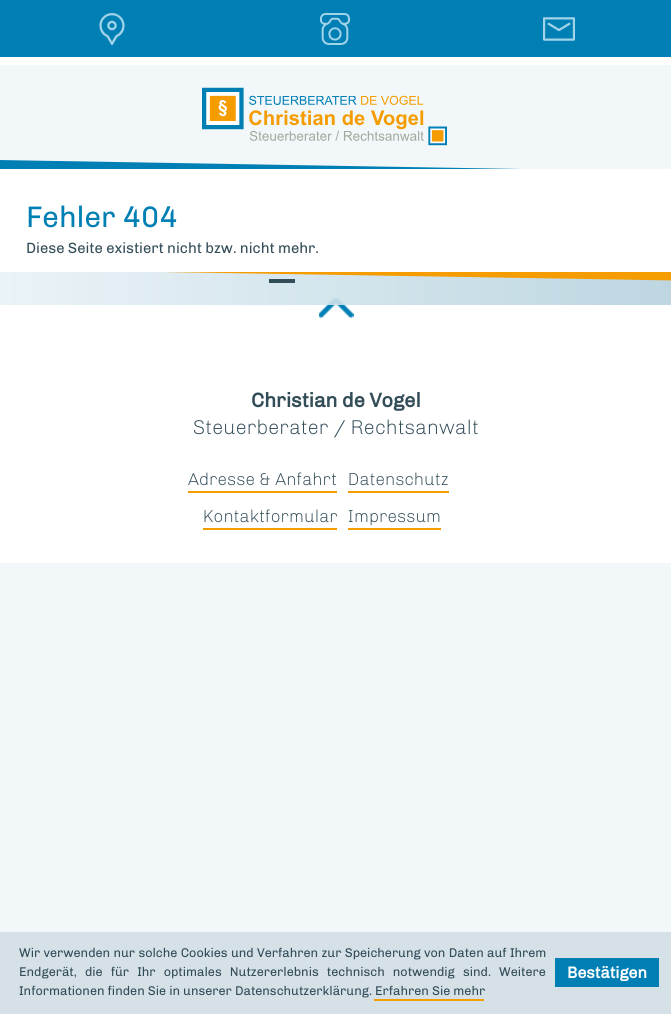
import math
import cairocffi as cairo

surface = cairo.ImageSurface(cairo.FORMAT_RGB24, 671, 1014)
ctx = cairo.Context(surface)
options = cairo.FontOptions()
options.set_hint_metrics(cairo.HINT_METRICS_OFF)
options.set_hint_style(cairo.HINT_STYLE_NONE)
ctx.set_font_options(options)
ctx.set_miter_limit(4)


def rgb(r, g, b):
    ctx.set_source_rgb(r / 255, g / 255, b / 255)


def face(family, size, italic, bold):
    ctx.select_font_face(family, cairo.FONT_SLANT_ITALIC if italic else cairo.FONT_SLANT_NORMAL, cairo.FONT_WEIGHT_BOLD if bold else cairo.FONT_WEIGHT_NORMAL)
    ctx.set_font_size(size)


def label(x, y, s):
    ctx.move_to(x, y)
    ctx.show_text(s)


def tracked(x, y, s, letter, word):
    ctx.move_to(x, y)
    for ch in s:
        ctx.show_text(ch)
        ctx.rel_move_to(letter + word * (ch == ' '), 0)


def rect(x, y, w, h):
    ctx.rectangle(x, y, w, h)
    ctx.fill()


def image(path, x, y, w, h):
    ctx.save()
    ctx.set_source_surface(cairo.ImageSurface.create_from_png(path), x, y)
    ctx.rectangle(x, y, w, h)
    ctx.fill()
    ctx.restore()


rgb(242, 247, 249)
ctx.paint()
rgb(0, 127, 181)
rect(0, 0, 671, 57)
rgb(255, 255, 255)
rect(0, 57, 671, 8)
image('image0.png', 99, 13, 26, 32)
image('image1.png', 319, 13, 32, 32)
image('image2.png', 543, 17, 32, 24)
image('image3.png', 202, 87, 245, 59)
rect(0, 272, 671, 291)
image('image4.png', 319, 298, 35, 20)
gradient = cairo.LinearGradient(0, 237, 671, 237)
gradient.add_color_stop_rgba(0.01, 0.91, 0.949, 0.969, 0.9)
gradient.add_color_stop_rgba(1, 0.714, 0.824, 0.871, 0.9)
ctx.set_source(gradient)
rect(0, 272, 671, 33)
rgb(50, 76, 88)
rect(269, 279, 26, 4)
rgb(0, 127, 181)
ctx.new_path()
ctx.move_to(-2, 160)
ctx.line_to(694, 172)
ctx.line_to(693, 222)
ctx.line_to(-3, 210)
ctx.close_path()
ctx.fill()
rgb(245, 156, 0)
ctx.new_path()
ctx.move_to(-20, 219)
ctx.line_to(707, 231)
ctx.line_to(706, 281)
ctx.line_to(-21, 269)
ctx.close_path()
ctx.fill()
rgb(255, 255, 255)
rect(0, 169, 671, 103)
face('Chivo', 29.75, 0, 0)
rgb(0, 127, 181)
label(26, 227, 'Fehler 404')
face('Chivo', 14.9, 0, 0)
rgb(50, 76, 88)
tracked(26, 253, 'Diese Seite existiert nicht bzw. nicht mehr.', 0, -0.25)
face('Chivo', 20, 0, 1)
tracked(251, 407, 'Christian de Vogel', 0, -0.25)
face('Chivo Light', 20, 0, 0)
label(193, 434, 'Steuerberater / Rechtsanwalt')
face('Chivo Light', 17.25, 0, 0)
label(188, 485, 'Adresse & Anfahrt')
rgb(245, 156, 0)
rect(188, 491, 149, 2)
rgb(50, 76, 88)
label(203, 522, 'Kontaktformular')
rgb(245, 156, 0)
rect(203, 528, 134, 2)
rgb(50, 76, 88)
label(348, 485, 'Datenschutz')
rgb(245, 156, 0)
rect(348, 491, 101, 2)
rgb(50, 76, 88)
label(348, 522, 'Impressum')
rgb(245, 156, 0)
rect(348, 528, 93, 2)
rgb(213, 225, 231)
rect(0, 932, 671, 82)
face('Chivo', 12.7, 0, 0)
rgb(50, 76, 88)
tracked(19, 957, 'Wir verwenden nur solche Cookies und Verfahren zur Speicherung von Daten auf Ihrem', 0, 0.25)
tracked(19, 976, 'Endgerät, die für Ihr optimales Nutzererlebnis technisch notwendig sind. Weitere', 0, 5)
label(19, 995, 'Informationen finden Sie in unserer Datenschutzerklärung. Erfahren Sie mehr')
rgb(245, 156, 0)
rect(374, 999, 110, 2)
rgb(0, 127, 181)
rect(555, 958, 104, 29)
face('Chivo', 16, 0, 1)
rgb(255, 255, 255)
label(567, 978, 'Bestätigen')
surface.write_to_png('render.png')
